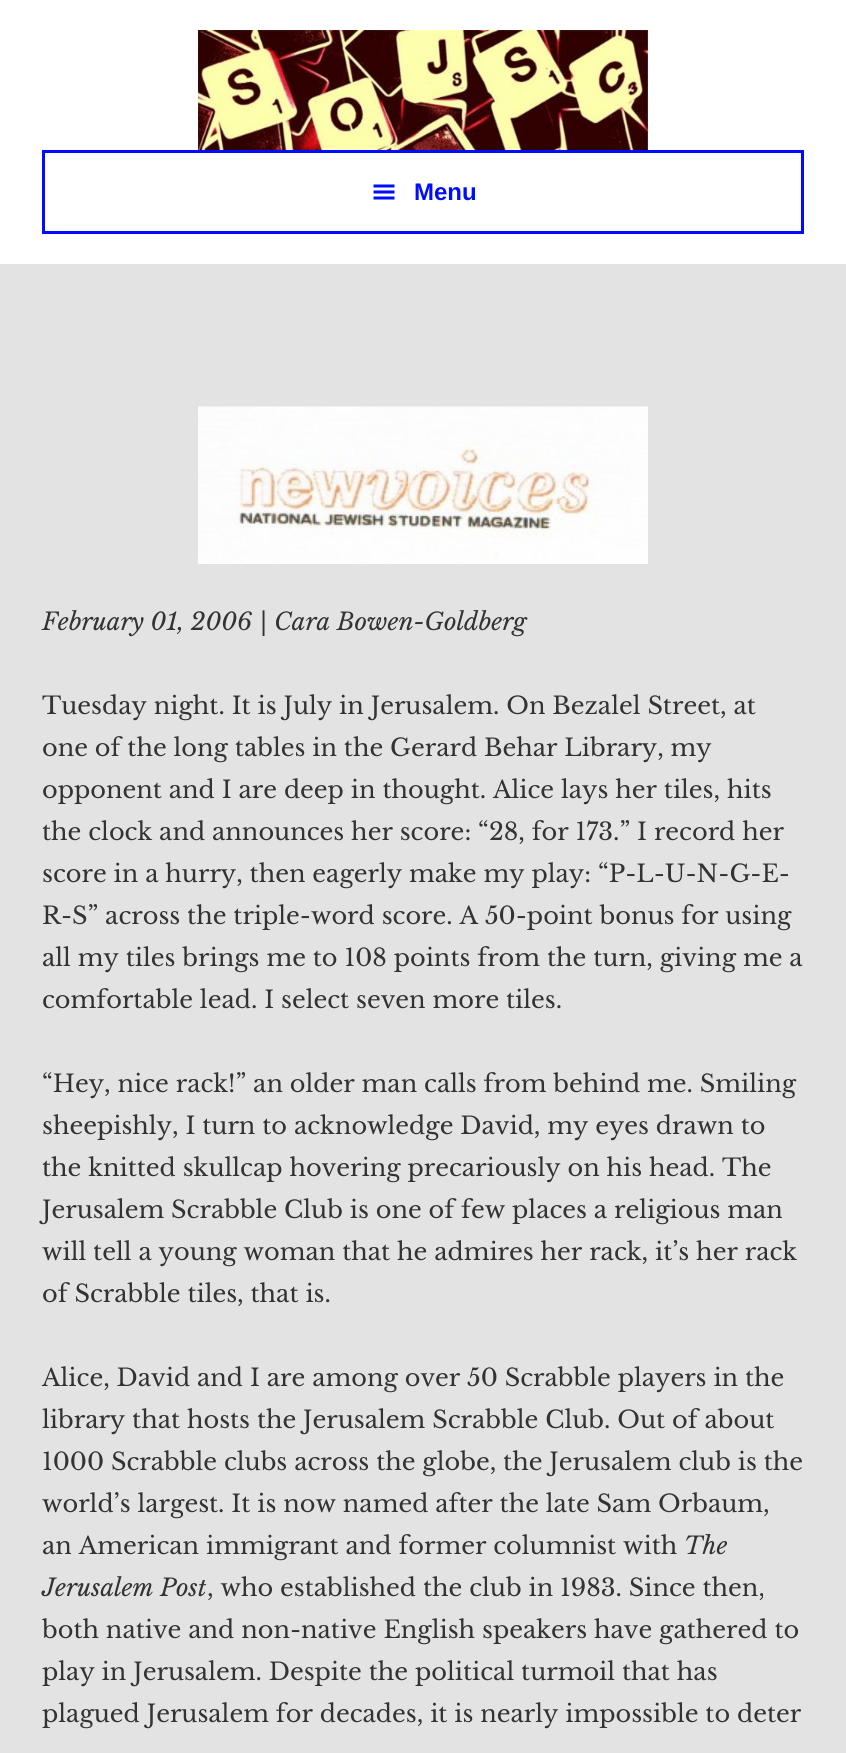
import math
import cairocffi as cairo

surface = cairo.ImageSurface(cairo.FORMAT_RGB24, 846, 1753)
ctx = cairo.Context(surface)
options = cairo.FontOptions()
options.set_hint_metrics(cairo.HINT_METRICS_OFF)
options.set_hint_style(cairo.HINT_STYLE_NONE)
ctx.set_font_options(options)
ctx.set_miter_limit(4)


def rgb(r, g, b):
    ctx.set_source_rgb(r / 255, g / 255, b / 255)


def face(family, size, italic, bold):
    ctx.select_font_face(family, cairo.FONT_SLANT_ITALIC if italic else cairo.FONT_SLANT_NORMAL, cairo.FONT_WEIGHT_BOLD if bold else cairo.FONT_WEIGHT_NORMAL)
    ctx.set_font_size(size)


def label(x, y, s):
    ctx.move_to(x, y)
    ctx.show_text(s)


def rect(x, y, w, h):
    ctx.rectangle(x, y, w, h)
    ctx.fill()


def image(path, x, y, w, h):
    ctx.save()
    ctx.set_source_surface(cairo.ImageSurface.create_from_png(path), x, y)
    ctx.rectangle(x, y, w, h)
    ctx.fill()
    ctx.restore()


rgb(255, 255, 255)
ctx.paint()
image('image0.png', 198, 30, 450, 120)
ctx.rectangle(43.5, 151.5, 759, 81)
rgb(0, 12, 255)
ctx.set_line_width(3)
ctx.stroke()
image('image1.png', 373, 184, 22, 16)
face('Liberation Sans', 24, 0, 1)
label(414, 200, 'Menu')
rgb(227, 227, 227)
rect(0, 264, 846, 1489)
image('image2.png', 198, 406, 450, 158)
face('Libre Baskerville', 24, 1, 0)
rgb(51, 51, 51)
label(42, 630, 'February 01, 2006 | Cara Bowen-Goldberg')
face('Libre Baskerville', 24, 0, 0)
label(42, 714, 'Tuesday night. It is July in Jerusalem. On Bezalel Street, at')
label(42, 756, 'one of the long tables in the Gerard Behar Library, my')
label(42, 798, 'opponent and I are deep in thought. Alice lays her tiles, hits')
label(42, 840, 'the clock and announces her score: “28, for 173.” I record her')
label(42, 882, 'score in a hurry, then eagerly make my play: “P-L-U-N-G-E-')
label(42, 924, 'R-S” across the triple-word score. A 50-point bonus for using')
label(42, 966, 'all my tiles brings me to 108 points from the turn, giving me a')
label(42, 1008, 'comfortable lead. I select seven more tiles.')
label(42, 1092, '“Hey, nice rack!” an older man calls from behind me. Smiling')
label(42, 1134, 'sheepishly, I turn to acknowledge David, my eyes drawn to')
label(42, 1176, 'the knitted skullcap hovering precariously on his head. The')
label(42, 1218, 'Jerusalem Scrabble Club is one of few places a religious man')
label(42, 1260, 'will tell a young woman that he admires her rack, it’s her rack')
label(42, 1302, 'of Scrabble tiles, that is.')
label(42, 1386, 'Alice, David and I are among over 50 Scrabble players in the')
label(42, 1428, 'library that hosts the Jerusalem Scrabble Club. Out of about')
label(42, 1470, '1000 Scrabble clubs across the globe, the Jerusalem club is the')
label(42, 1512, 'world’s largest. It is now named after the late Sam Orbaum,')
label(42, 1554, 'an American immigrant and former columnist with')
face('Libre Baskerville', 24, 1, 0)
label(684, 1554, 'The')
label(42, 1596, 'Jerusalem Post')
face('Libre Baskerville', 24, 0, 0)
label(207, 1596, ', who established the club in 1983. Since then,')
label(42, 1638, 'both native and non-native English speakers have gathered to')
label(42, 1680, 'play in Jerusalem. Despite the political turmoil that has')
label(42, 1722, 'plagued Jerusalem for decades, it is nearly impossible to deter')
surface.write_to_png('render.png')
